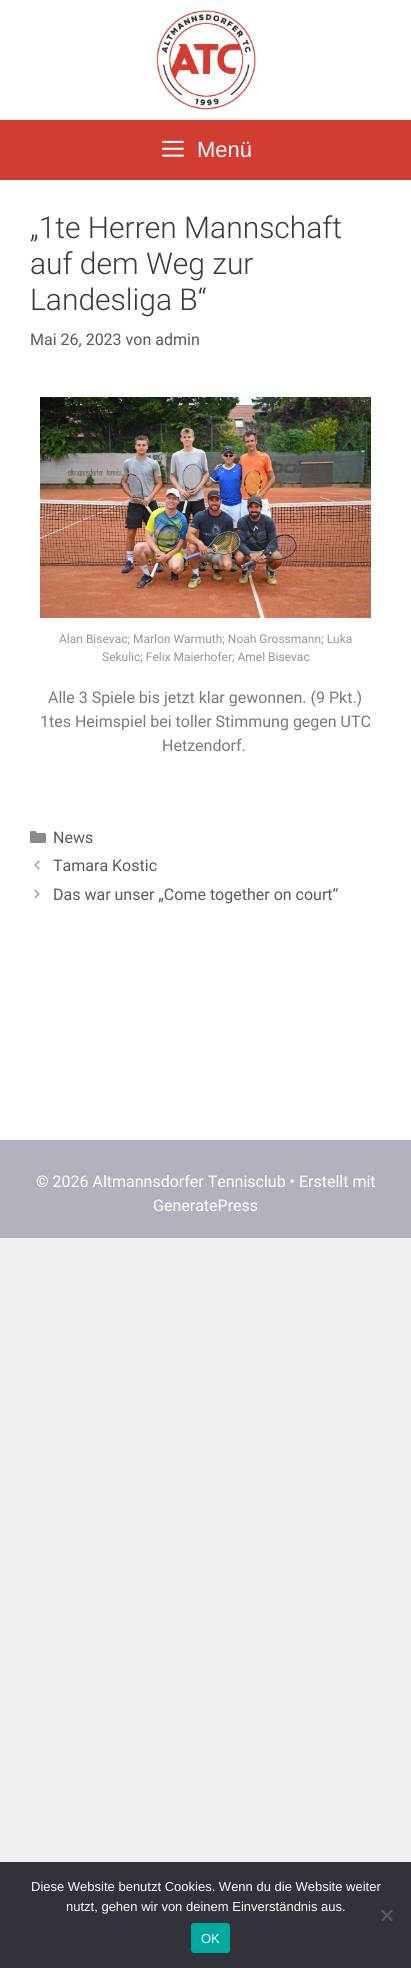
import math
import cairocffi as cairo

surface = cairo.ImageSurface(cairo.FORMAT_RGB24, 411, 1968)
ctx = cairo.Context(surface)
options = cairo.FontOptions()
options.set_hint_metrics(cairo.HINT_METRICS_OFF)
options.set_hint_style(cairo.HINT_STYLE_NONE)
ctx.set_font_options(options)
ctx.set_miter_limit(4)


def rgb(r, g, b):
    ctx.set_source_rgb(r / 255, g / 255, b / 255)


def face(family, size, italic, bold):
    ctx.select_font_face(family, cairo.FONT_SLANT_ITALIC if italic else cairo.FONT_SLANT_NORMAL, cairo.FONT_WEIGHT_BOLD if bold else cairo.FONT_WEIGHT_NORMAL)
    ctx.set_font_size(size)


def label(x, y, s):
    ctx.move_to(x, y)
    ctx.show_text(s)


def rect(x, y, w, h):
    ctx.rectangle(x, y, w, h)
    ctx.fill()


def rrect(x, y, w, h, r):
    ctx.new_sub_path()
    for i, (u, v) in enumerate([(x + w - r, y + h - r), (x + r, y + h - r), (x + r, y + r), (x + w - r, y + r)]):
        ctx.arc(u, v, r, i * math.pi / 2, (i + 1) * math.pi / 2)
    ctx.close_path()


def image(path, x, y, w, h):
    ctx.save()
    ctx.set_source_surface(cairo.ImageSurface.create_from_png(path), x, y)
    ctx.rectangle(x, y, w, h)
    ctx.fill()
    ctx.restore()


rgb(239, 239, 239)
ctx.paint()
rgb(255, 255, 255)
rect(0, 0, 411, 120)
image('image0.png', 156, 10, 100, 100)
rgb(211, 60, 49)
rect(0, 120, 411, 60)
image('image1.png', 162, 140, 22, 17)
face('Liberation Sans', 22, 0, 0)
rgb(255, 255, 255)
label(197, 157, 'Menü')
rect(0, 180, 411, 960)
face('Roboto Light', 30, 0, 0)
rgb(58, 58, 58)
label(30, 238, '„1te Herren Mannschaft')
label(30, 274, 'auf dem Weg zur')
label(30, 310, 'Landesliga B“')
face('Roboto', 16, 0, 0)
rgb(89, 89, 89)
label(30, 345, 'Mai 26, 2023 von admin')
image('image2.png', 40, 397, 331, 221)
face('Roboto', 12, 0, 0)
rgb(149, 149, 149)
label(59, 643, 'Alan Bisevac; Marlon Warmuth; Noah Grossmann; Luka')
label(102, 661, 'Sekulic; Felix Maierhofer; Amel Bisevac')
face('Roboto', 16, 0, 0)
rgb(122, 122, 122)
label(48, 703, 'Alle 3 Spiele bis jetzt klar gewonnen. (9 Pkt.)')
label(40, 727, '1tes Heimspiel bei toller Stimmung gegen UTC')
label(162, 751, 'Hetzendorf.')
image('image3.png', 30, 831, 16, 12)
rgb(89, 89, 89)
label(53, 843, 'News')
image('image4.png', 34, 860, 6, 10)
label(53, 871, 'Tamara Kostic')
image('image5.png', 34, 889, 6, 10)
label(53, 900, 'Das war unser „Come together on court“')
rgb(178, 178, 190)
rect(0, 1140, 411, 98)
rgb(255, 255, 255)
label(36, 1187, '© 2026 Altmannsdorfer Tennisclub • Erstellt mit')
label(153, 1211, 'GeneratePress')
rgb(50, 50, 58)
rect(0, 1862, 411, 106)
face('Liberation Sans', 13, 0, 0)
rgb(255, 255, 255)
label(31, 1891, 'Diese Website benutzt Cookies. Wenn du die Website weiter')
label(66, 1911, 'nutzt, gehen wir von deinem Einverständnis aus.')
rgb(89, 89, 93)
ctx.new_path()
ctx.move_to(391.5, 1909.5)
ctx.line_to(393, 1911)
ctx.line_to(382.5, 1921.5)
ctx.line_to(381, 1920)
ctx.close_path()
ctx.fill()
ctx.new_path()
ctx.move_to(381, 1911)
ctx.line_to(382.5, 1909.5)
ctx.line_to(393, 1920)
ctx.line_to(391.5, 1921.5)
ctx.close_path()
ctx.fill()
rgb(0, 169, 157)
rrect(191, 1923, 39, 30, 3)
ctx.fill()
rgb(255, 255, 255)
label(201, 1943, 'OK')
surface.write_to_png('render.png')
